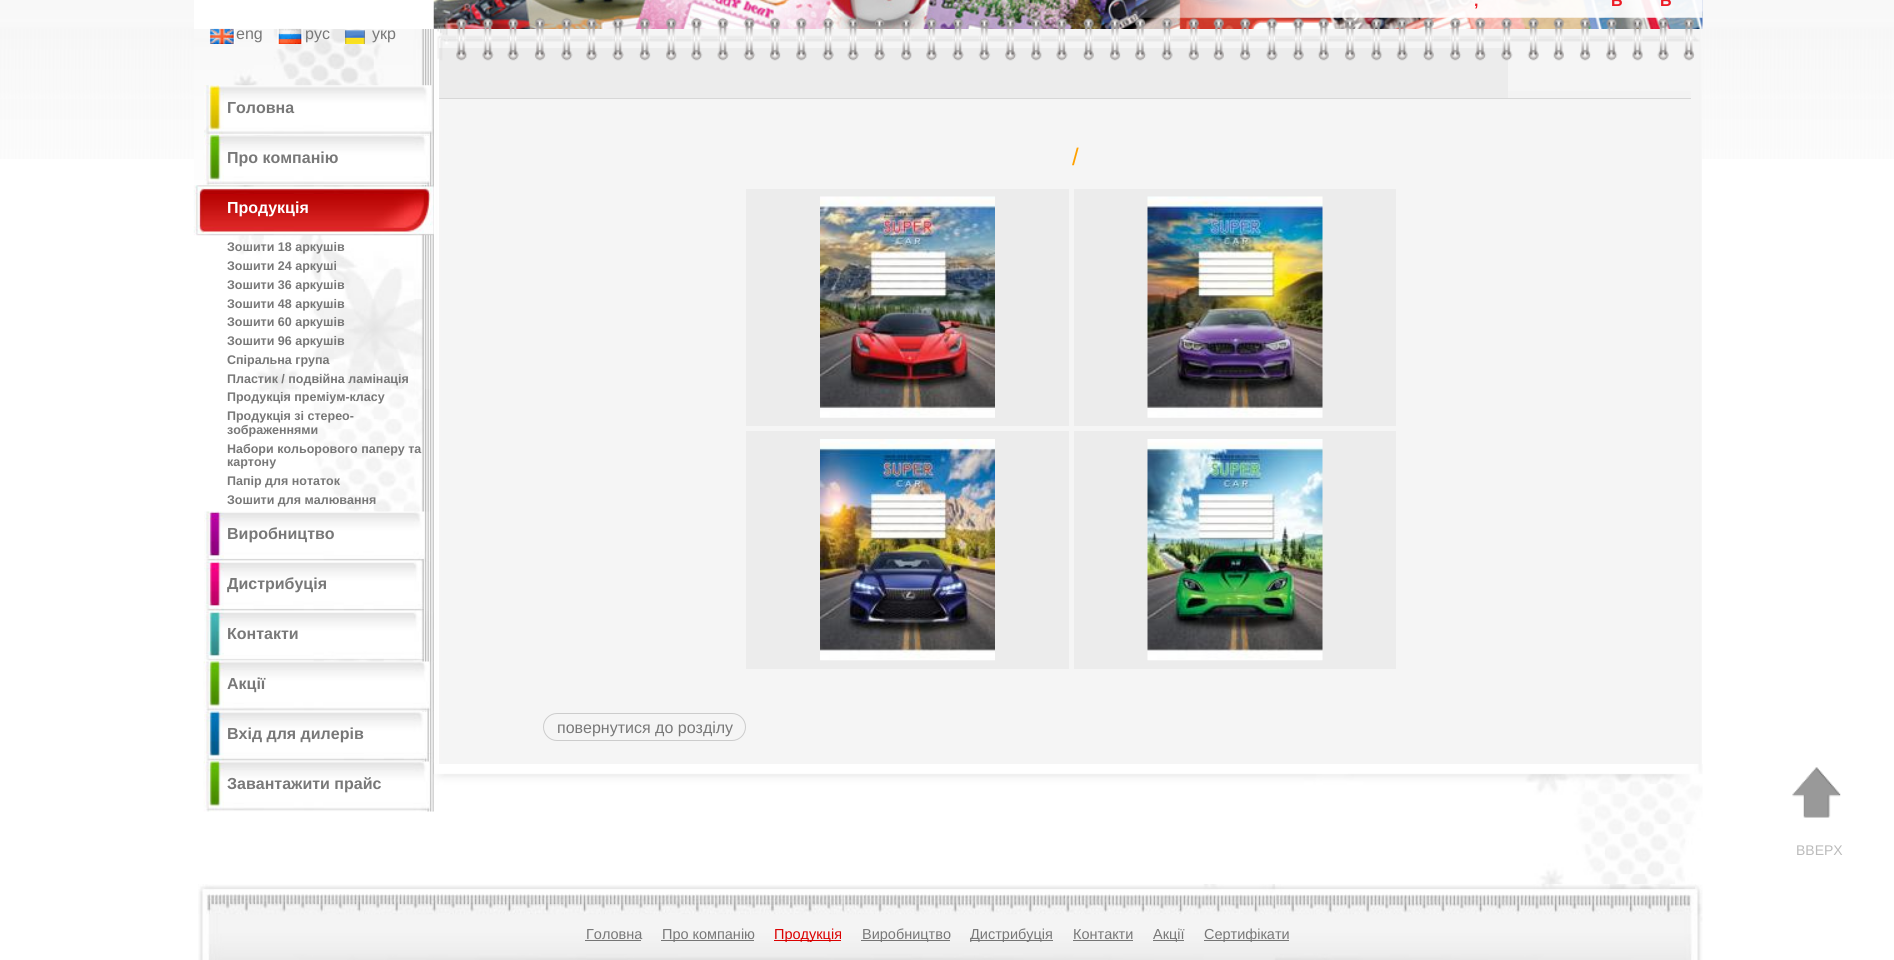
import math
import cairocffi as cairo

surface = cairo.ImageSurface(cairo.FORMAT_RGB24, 1894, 960)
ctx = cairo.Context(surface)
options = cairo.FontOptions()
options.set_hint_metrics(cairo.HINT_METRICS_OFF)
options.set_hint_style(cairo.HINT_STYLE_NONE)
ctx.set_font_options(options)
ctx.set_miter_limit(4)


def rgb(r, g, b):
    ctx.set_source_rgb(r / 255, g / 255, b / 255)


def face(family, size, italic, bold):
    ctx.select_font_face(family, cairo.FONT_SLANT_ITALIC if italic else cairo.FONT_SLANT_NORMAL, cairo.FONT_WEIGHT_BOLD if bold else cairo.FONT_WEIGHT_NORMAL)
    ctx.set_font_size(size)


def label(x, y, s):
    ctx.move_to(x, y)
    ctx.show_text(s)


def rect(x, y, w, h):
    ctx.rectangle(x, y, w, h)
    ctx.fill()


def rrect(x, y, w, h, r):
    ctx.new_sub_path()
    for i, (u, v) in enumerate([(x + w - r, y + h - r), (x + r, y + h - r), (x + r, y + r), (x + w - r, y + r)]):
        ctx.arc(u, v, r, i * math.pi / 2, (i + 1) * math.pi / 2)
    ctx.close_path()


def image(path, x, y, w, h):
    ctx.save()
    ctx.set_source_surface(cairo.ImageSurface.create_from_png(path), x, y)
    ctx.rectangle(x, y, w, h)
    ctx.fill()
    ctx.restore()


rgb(255, 255, 255)
ctx.paint()
image('image0.png', 0, 0, 1894, 159)
rgb(255, 255, 255)
rect(194, 0, 240, 29)
image('image1.png', 433, 0, 1270, 29)
image('image2.png', 1111, 0, 592, 18)
face('Liberation Sans', 16, 0, 1)
rgb(237, 27, 36)
label(1474, 6, ',')
label(1611, 6, 'Ь')
label(1660, 6, 'Ь')
image('image4.png', 194, 29, 1508, 735)
rgb(246, 245, 245)
rect(439, 91, 2, 673)
rgb(236, 236, 236)
rect(439, 48, 1069, 50)
image('image3.png', 437, 17, 1263, 44)
image('image5.png', 194, 29, 240, 600)
image('image6.png', 209, 28, 26, 16)
face('Liberation Sans', 16, 0, 0)
rgb(120, 120, 120)
label(236, 39, 'eng')
image('image7.png', 277, 28, 26, 16)
label(305, 39, 'рус')
image('image8.png', 345, 30, 20, 14)
label(372, 39, 'укр')
image('image9.png', 204, 85, 229, 51)
face('Liberation Sans', 16, 0, 1)
label(227, 113, 'Головна')
image('image10.png', 204, 135, 230, 51)
label(227, 163, 'Про компанію')
image('image11.png', 193, 185, 241, 51)
rgb(255, 255, 255)
label(227, 213, 'Продукція')
face('Liberation Sans', 12.5, 0, 1)
rgb(120, 120, 120)
label(227, 251, 'Зошити 18 аркушів')
label(227, 270, 'Зошити 24 аркуші')
label(227, 289, 'Зошити 36 аркушів')
label(227, 308, 'Зошити 48 аркушів')
label(227, 326, 'Зошити 60 аркушів')
label(227, 345, 'Зошити 96 аркушів')
label(227, 364, 'Спіральна група')
label(227, 383, 'Пластик / подвійна ламінація')
label(227, 401, 'Продукція преміум-класу')
label(227, 420, 'Продукція зі стерео-')
label(227, 434, 'зображеннями')
label(227, 453, 'Набори кольорового паперу та')
label(227, 466, 'картону')
label(227, 485, 'Папір для нотаток')
label(227, 504, 'Зошити для малювання')
image('image12.png', 204, 511, 227, 51)
face('Liberation Sans', 16, 0, 1)
label(227, 539, 'Виробництво')
image('image13.png', 204, 561, 225, 51)
label(227, 589, 'Дистрибуція')
image('image14.png', 204, 611, 230, 51)
label(227, 639, 'Контакти')
image('image15.png', 203, 661, 231, 51)
label(227, 689, 'Акції')
image('image16.png', 204, 711, 230, 51)
label(227, 739, 'Вхiд для дилерiв')
image('image22.png', 419, 764, 1284, 125)
image('image17.png', 203, 761, 231, 51)
label(227, 789, 'Завантажити прайс')
rgb(215, 215, 215)
rect(439, 98, 1252, 1)
rgb(243, 243, 243)
rect(1508, 91, 183, 7)
face('Liberation Sans', 24, 0, 0)
rgb(255, 161, 0)
label(1072, 165, '/')
rgb(236, 236, 236)
rect(746, 189, 323, 237)
image('image18.png', 820, 196, 175, 222)
rect(1074, 189, 322, 237)
image('image19.png', 1147, 196, 176, 222)
rect(746, 431, 323, 238)
image('image20.png', 820, 439, 175, 222)
rect(1074, 431, 322, 238)
image('image21.png', 1147, 439, 176, 222)
rrect(543.5, 713.5, 202, 27, 13.5)
rgb(204, 204, 204)
ctx.set_line_width(1)
ctx.stroke()
face('Liberation Sans', 16, 0, 0)
rgb(120, 120, 120)
label(557, 733, 'повернутися до розділу')
image('image23.png', 198, 884, 1505, 76)
face('Liberation Sans', 14.5, 0, 0)
label(586, 939, 'Головна')
rgb(117, 117, 117)
rect(585, 940, 56, 1)
rect(661, 940, 93, 1)
rgb(120, 120, 120)
label(662, 939, 'Про компанію')
rgb(219, 0, 0)
rect(774, 940, 67, 1)
label(774, 939, 'Продукція')
rgb(117, 117, 117)
rect(861, 940, 89, 1)
rgb(120, 120, 120)
label(862, 939, 'Виробництво')
rgb(117, 117, 117)
rect(970, 940, 83, 1)
rgb(120, 120, 120)
label(970, 939, 'Дистрибуція')
label(1073, 939, 'Контакти')
rgb(117, 117, 117)
rect(1073, 940, 60, 1)
rect(1153, 940, 31, 1)
rgb(120, 120, 120)
label(1153, 939, 'Акції')
rgb(117, 117, 117)
rect(1204, 940, 85, 1)
rgb(120, 120, 120)
label(1204, 939, 'Сертифікати')
image('image24.png', 1792, 767, 49, 51)
face('Liberation Sans', 14, 0, 0)
rgb(187, 187, 187)
label(1796, 855, 'ВВЕРХ')
surface.write_to_png('render.png')
